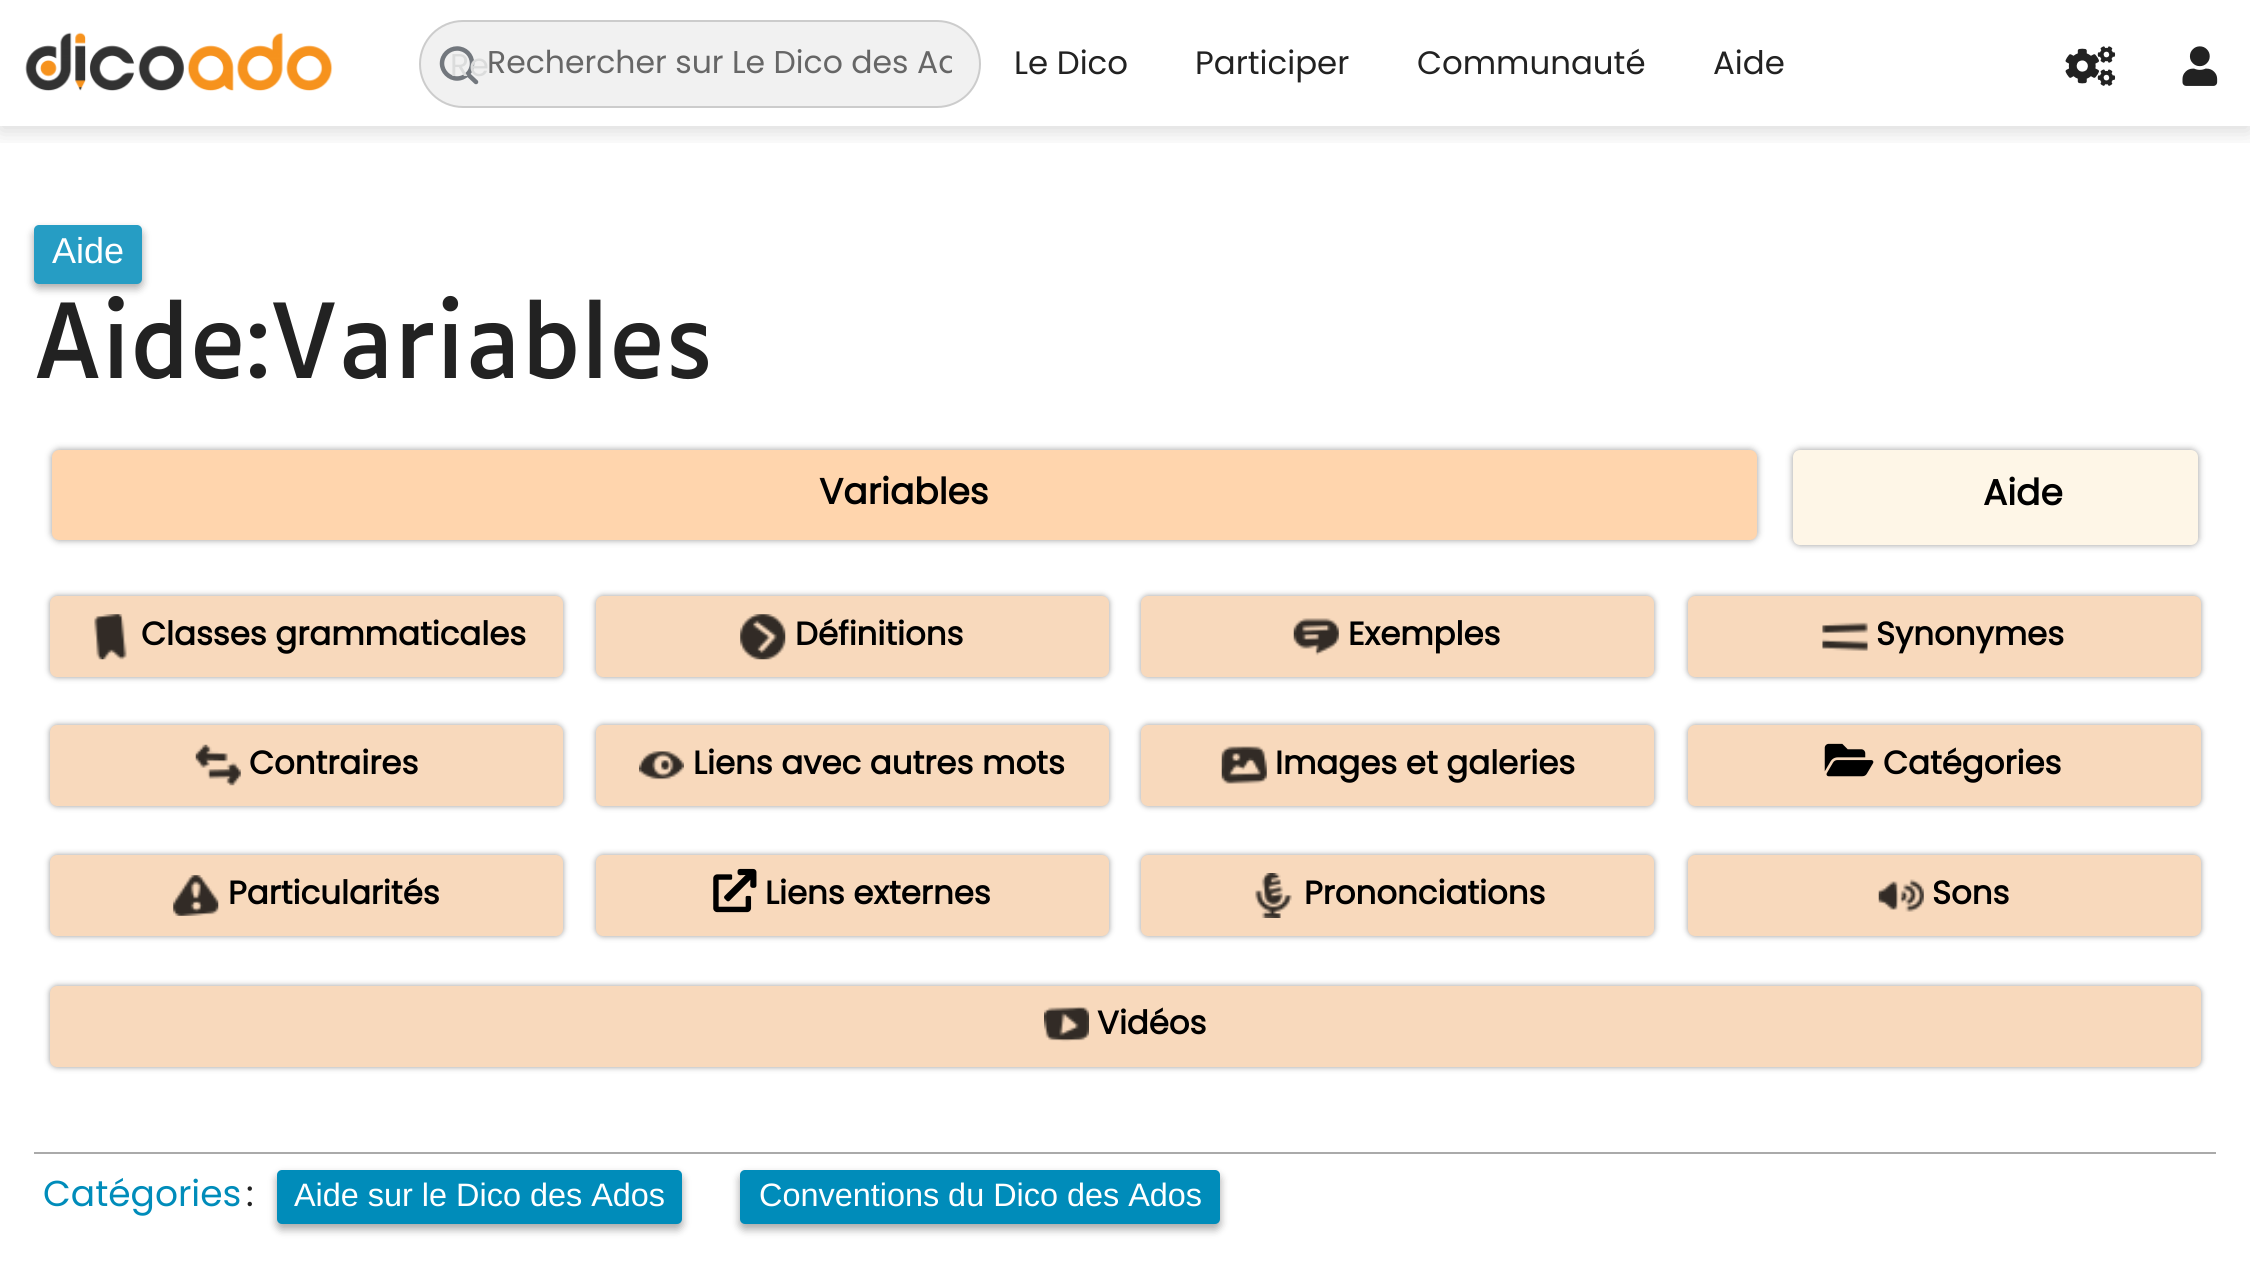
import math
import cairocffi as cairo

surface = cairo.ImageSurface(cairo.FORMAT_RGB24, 2250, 1278)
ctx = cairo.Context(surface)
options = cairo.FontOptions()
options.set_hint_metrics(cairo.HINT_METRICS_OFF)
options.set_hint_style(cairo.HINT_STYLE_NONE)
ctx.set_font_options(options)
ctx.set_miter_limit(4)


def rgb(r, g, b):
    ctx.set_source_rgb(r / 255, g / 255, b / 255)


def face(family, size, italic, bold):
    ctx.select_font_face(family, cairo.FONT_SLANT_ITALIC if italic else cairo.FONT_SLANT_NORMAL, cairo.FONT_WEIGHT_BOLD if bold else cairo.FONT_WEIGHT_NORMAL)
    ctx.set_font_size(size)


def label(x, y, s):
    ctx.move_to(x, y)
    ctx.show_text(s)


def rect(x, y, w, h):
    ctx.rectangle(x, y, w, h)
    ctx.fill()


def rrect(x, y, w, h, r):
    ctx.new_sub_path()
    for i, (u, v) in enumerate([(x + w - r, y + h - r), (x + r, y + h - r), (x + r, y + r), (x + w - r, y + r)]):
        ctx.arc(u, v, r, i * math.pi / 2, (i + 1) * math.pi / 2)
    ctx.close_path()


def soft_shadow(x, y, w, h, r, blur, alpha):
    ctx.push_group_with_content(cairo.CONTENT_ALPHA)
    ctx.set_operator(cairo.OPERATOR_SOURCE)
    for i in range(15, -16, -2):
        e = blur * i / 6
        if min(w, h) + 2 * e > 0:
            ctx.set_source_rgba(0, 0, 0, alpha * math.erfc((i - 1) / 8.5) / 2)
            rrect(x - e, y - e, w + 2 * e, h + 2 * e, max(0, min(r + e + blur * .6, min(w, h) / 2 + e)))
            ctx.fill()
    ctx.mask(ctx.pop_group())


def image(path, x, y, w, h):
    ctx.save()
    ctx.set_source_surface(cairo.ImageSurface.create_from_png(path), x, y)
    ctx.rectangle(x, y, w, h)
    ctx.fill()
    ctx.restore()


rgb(255, 255, 255)
ctx.paint()
ctx.save()
ctx.rectangle(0, 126, 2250, 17)
ctx.clip()
rgb(0, 0, 0)
soft_shadow(0, 5, 2250, 126, 0, 11, 0.15)
ctx.restore()
image('image0.png', 25, 32, 308, 59)
rgb(241, 241, 241)
rrect(420, 21, 560, 86, 43)
ctx.fill_preserve()
rgb(204, 204, 204)
ctx.stroke()
ctx.new_path()
ctx.move_to(457, 78.5)
ctx.curve_to(465.5, 78.5, 472, 71.5, 472, 63.5)
ctx.curve_to(472, 55, 465.5, 48.5, 457, 48.5)
ctx.curve_to(449, 48.5, 442, 55, 442, 63.5)
ctx.curve_to(442, 71.5, 449, 78.5, 457, 78.5)
ctx.close_path()
ctx.move_to(476, 82)
ctx.line_to(467.5, 74)
rgb(114, 119, 125)
ctx.set_line_width(4.5)
ctx.set_line_cap(cairo.LINE_CAP_ROUND)
ctx.set_line_join(cairo.LINE_JOIN_ROUND)
ctx.stroke()
face('Poppins', 31.5, 0, 0)
rgb(219, 220, 220)
label(450, 76, 'Re')
ctx.save()
ctx.rectangle(488, 41, 464, 47)
ctx.clip()
rgb(102, 102, 102)
label(487, 73, 'Rechercher sur Le Dico des Ad')
ctx.restore()
face('Poppins', 32.4, 0, 0)
rgb(34, 34, 34)
label(1014, 74, 'Le Dico')
label(1195, 74, 'Participer')
label(1417, 74, 'Communauté')
label(1713, 74, 'Aide')
image('image1.png', 2065, 46, 51, 40)
image('image2.png', 2182, 46, 36, 40)
image('image3.png', 36, 295, 205, 85)
rgb(0, 0, 0)
soft_shadow(34, 230, 108, 58, 5, 4.5, 0.24)
soft_shadow(34, 230, 108, 58, 5, 4.5, 0.14)
rgb(38, 157, 196)
rrect(34, 225, 108, 59, 5)
ctx.fill()
face('Liberation Sans', 36, 0, 0)
rgb(255, 255, 255)
label(52, 263, 'Aide')
rgb(34, 34, 34)
ctx.new_path()
ctx.move_to(266, 331)
ctx.curve_to(266, 341, 250, 341, 250, 331)
ctx.curve_to(250, 321, 266, 321, 266, 331)
ctx.close_path()
ctx.move_to(266, 371)
ctx.curve_to(266, 381, 250, 381, 250, 371)
ctx.curve_to(250, 361, 266, 361, 266, 371)
ctx.close_path()
ctx.fill()
image('image4.png', 273, 295, 435, 85)
rgb(153, 153, 153)
soft_shadow(52, 450, 1705, 90, 7, 3.5, 1)
rgb(255, 213, 173)
rrect(52, 450, 1705, 90, 7)
ctx.fill()
face('Poppins', 36, 0, 1)
rgb(0, 0, 0)
label(819, 504, 'Variables')
rgb(153, 153, 153)
soft_shadow(1793, 450, 405, 95, 7, 3.5, 1)
rgb(254, 246, 231)
rrect(1793, 450, 405, 95, 7)
ctx.fill()
rgb(0, 0, 0)
label(1983, 505, 'Aide')
rgb(153, 153, 153)
soft_shadow(50, 596, 513, 81, 7, 3, 1)
rgb(248, 217, 188)
rrect(50, 596, 513, 81, 7)
ctx.fill()
image('image5.png', 94, 614, 33, 46)
face('Poppins', 32.4, 0, 1)
rgb(0, 0, 0)
label(141, 645, 'Classes grammaticales')
rgb(153, 153, 153)
soft_shadow(596, 596, 513, 81, 7, 3, 1)
rgb(248, 217, 188)
rrect(596, 596, 513, 81, 7)
ctx.fill()
image('image6.png', 740, 614, 46, 46)
rgb(0, 0, 0)
label(795, 645, 'Définitions')
rgb(153, 153, 153)
soft_shadow(1141, 596, 513, 81, 7, 3, 1)
rgb(248, 217, 188)
rrect(1141, 596, 513, 81, 7)
ctx.fill()
image('image7.png', 1293, 618, 46, 38)
rgb(0, 0, 0)
label(1348, 645, 'Exemples')
rgb(153, 153, 153)
soft_shadow(1688, 596, 513, 81, 7, 3, 1)
rgb(248, 217, 188)
rrect(1688, 596, 513, 81, 7)
ctx.fill()
image('image8.png', 1822, 622, 46, 29)
rgb(0, 0, 0)
label(1876, 645, 'Synonymes')
rgb(153, 153, 153)
soft_shadow(50, 725, 513, 81, 7, 3, 1)
rgb(248, 217, 188)
rrect(50, 725, 513, 81, 7)
ctx.fill()
image('image9.png', 195, 744, 46, 42)
rgb(0, 0, 0)
label(249, 774, 'Contraires')
rgb(153, 153, 153)
soft_shadow(596, 725, 513, 81, 7, 3, 1)
rgb(248, 217, 188)
rrect(596, 725, 513, 81, 7)
ctx.fill()
image('image10.png', 639, 751, 45, 29)
rgb(0, 0, 0)
label(693, 774, 'Liens avec autres mots')
rgb(153, 153, 153)
soft_shadow(1141, 725, 513, 81, 7, 3, 1)
rgb(248, 217, 188)
rrect(1141, 725, 513, 81, 7)
ctx.fill()
image('image11.png', 1221, 746, 46, 38)
rgb(0, 0, 0)
label(1275, 774, 'Images et galeries')
rgb(153, 153, 153)
soft_shadow(1688, 725, 513, 81, 7, 3, 1)
rgb(248, 217, 188)
rrect(1688, 725, 513, 81, 7)
ctx.fill()
image('image12.png', 1824, 743, 50, 34)
rgb(0, 0, 0)
label(1883, 774, 'Catégories')
rgb(153, 153, 153)
soft_shadow(50, 855, 513, 81, 7, 3, 1)
rgb(248, 217, 188)
rrect(50, 855, 513, 81, 7)
ctx.fill()
image('image13.png', 173, 875, 46, 41)
rgb(0, 0, 0)
label(228, 904, 'Particularités')
rgb(153, 153, 153)
soft_shadow(596, 855, 513, 81, 7, 3, 1)
rgb(248, 217, 188)
rrect(596, 855, 513, 81, 7)
ctx.fill()
image('image14.png', 713, 868, 44, 45)
rgb(0, 0, 0)
label(765, 904, 'Liens externes')
rgb(153, 153, 153)
soft_shadow(1141, 855, 513, 81, 7, 3, 1)
rgb(248, 217, 188)
rrect(1141, 855, 513, 81, 7)
ctx.fill()
image('image15.png', 1255, 873, 37, 45)
rgb(0, 0, 0)
label(1304, 904, 'Prononciations')
rgb(153, 153, 153)
soft_shadow(1688, 855, 513, 81, 7, 3, 1)
rgb(248, 217, 188)
rrect(1688, 855, 513, 81, 7)
ctx.fill()
image('image16.png', 1878, 879, 46, 33)
rgb(0, 0, 0)
label(1932, 904, 'Sons')
rgb(153, 153, 153)
soft_shadow(50, 986, 2151, 81, 7, 3, 1)
rgb(248, 217, 188)
rrect(50, 986, 2151, 81, 7)
ctx.fill()
image('image17.png', 1044, 1006, 45, 36)
rgb(0, 0, 0)
label(1097, 1034, 'Vidéos')
rgb(170, 170, 170)
rect(34, 1152, 2182, 2)
face('Poppins', 36, 0, 0)
rgb(0, 140, 186)
label(43, 1206, 'Catégories')
rgb(34, 34, 34)
label(246, 1206, ':')
rgb(0, 0, 0)
soft_shadow(277, 1175, 405, 54, 5, 4.5, 0.24)
soft_shadow(277, 1175, 405, 54, 5, 4.5, 0.14)
rgb(0, 140, 186)
rrect(277, 1170, 405, 54, 5)
ctx.fill()
face('Liberation Sans', 32.4, 0, 0)
rgb(255, 255, 255)
label(294, 1206, 'Aide sur le Dico des Ados')
rgb(0, 0, 0)
soft_shadow(740, 1175, 480, 54, 5, 4.5, 0.24)
soft_shadow(740, 1175, 480, 54, 5, 4.5, 0.14)
rgb(0, 140, 186)
rrect(740, 1170, 480, 54, 5)
ctx.fill()
rgb(255, 255, 255)
label(759, 1206, 'Conventions du Dico des Ados')
surface.write_to_png('render.png')
